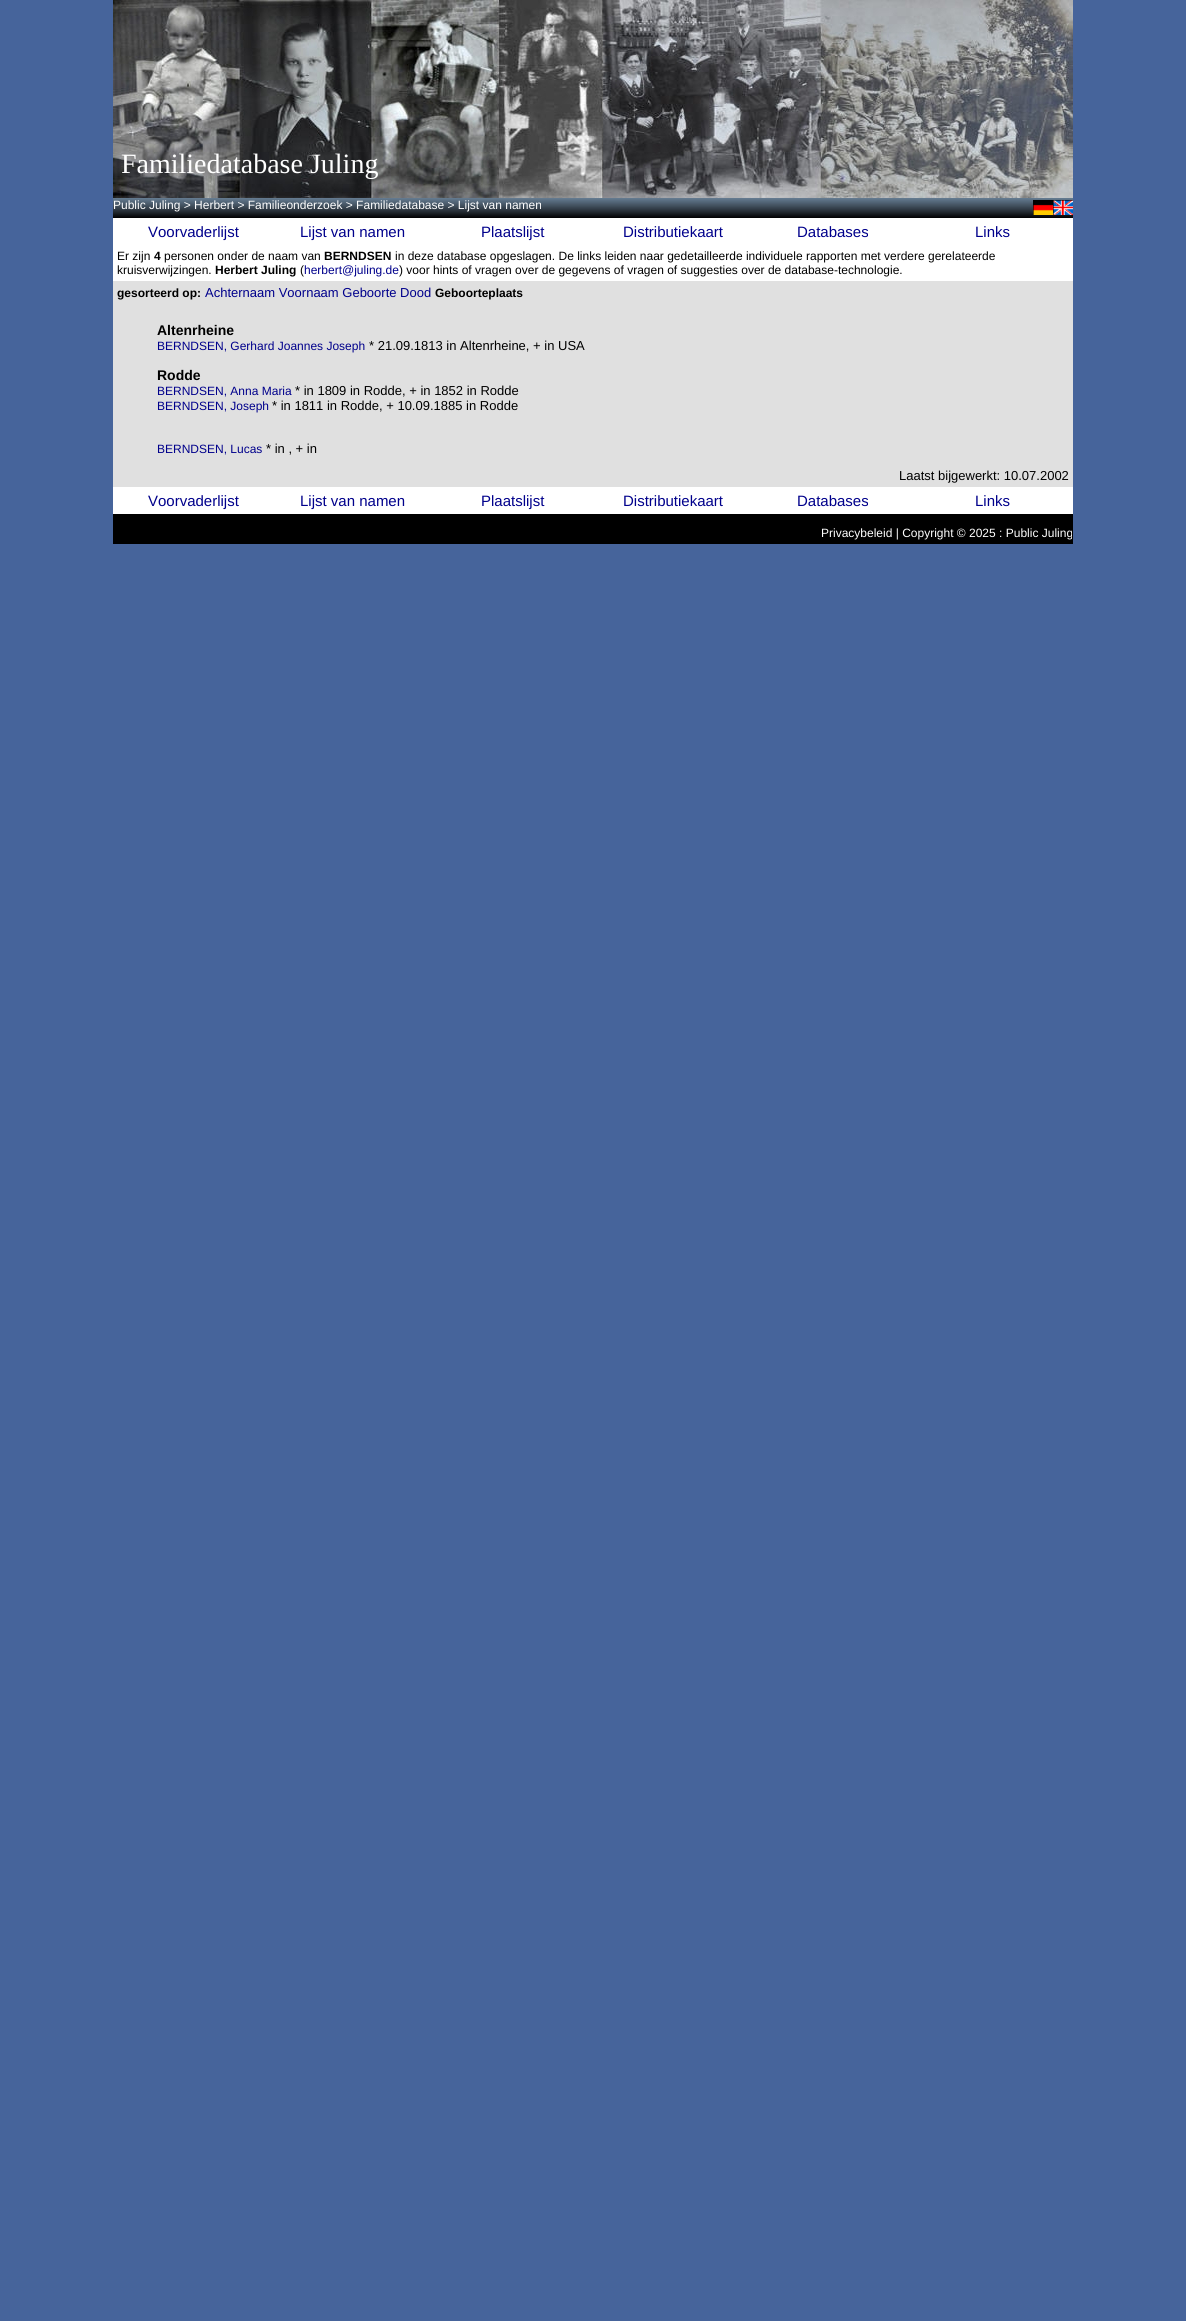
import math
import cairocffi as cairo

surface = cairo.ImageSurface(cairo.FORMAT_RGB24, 1186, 2321)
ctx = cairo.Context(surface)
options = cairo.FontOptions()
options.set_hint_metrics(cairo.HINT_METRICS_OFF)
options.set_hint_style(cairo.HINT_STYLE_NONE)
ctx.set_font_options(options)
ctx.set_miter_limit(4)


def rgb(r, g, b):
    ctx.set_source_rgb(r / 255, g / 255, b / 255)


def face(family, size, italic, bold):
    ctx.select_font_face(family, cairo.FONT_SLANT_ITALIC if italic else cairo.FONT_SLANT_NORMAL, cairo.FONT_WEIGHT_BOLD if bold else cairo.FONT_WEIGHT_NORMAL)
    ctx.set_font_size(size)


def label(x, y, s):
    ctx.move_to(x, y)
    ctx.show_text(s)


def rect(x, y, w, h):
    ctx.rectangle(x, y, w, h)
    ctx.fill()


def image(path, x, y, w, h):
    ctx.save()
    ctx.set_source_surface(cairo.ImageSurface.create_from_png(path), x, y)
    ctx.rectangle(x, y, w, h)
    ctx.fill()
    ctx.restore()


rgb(70, 100, 155)
ctx.paint()
image('image0.png', 113, 0, 960, 198)
face('Liberation Serif', 28, 0, 0)
rgb(255, 255, 255)
label(121, 173, 'Familiedatabase Juling')
gradient = cairo.LinearGradient(593, 198, 593, 245)
gradient.add_color_stop_rgba(0, 0.373, 0.467, 0.58, 1)
gradient.add_color_stop_rgba(1, 0, 0, 0, 1)
ctx.set_source(gradient)
rect(113, 198, 960, 20)
gradient = cairo.LinearGradient(593, 198, 593, 218)
gradient.add_color_stop_rgba(0, 0.404, 0.49, 0.569, 0.75)
gradient.add_color_stop_rgba(1, 0, 0, 0, 1)
ctx.set_source(gradient)
rect(113, 198, 960, 20)
face('Liberation Sans', 12, 0, 0)
rgb(255, 255, 255)
label(113, 209, 'Public Juling > Herbert > Familieonderzoek > Familiedatabase > Lijst van namen')
image('image1.png', 1033, 200, 20, 15)
image('image2.png', 1053, 200, 20, 15)
rect(113, 218, 960, 63)
face('Liberation Sans', 15, 0, 0)
rgb(0, 0, 139)
label(148, 237, 'Voorvaderlijst')
label(300, 237, 'Lijst van namen')
label(481, 237, 'Plaatslijst')
label(623, 237, 'Distributiekaart')
label(797, 237, 'Databases')
label(975, 237, 'Links')
rgb(224, 224, 224)
rect(113, 281, 960, 206)
face('Liberation Sans', 12, 0, 0)
rgb(0, 0, 0)
label(117, 260, 'Er zijn')
face('Liberation Sans', 12, 0, 1)
label(154, 260, '4')
face('Liberation Sans', 12, 0, 0)
label(164, 260, 'personen onder de naam van')
face('Liberation Sans', 12, 0, 1)
label(324, 260, 'BERNDSEN')
face('Liberation Sans', 12, 0, 0)
label(395, 260, 'in deze database opgeslagen. De links leiden naar gedetailleerde individuele rapporten met verdere gerelateerde')
label(117, 274, 'kruisverwijzingen.')
face('Liberation Sans', 12, 0, 1)
label(215, 274, 'Herbert Juling')
face('Liberation Sans', 12, 0, 0)
label(300, 274, '(')
rgb(0, 0, 139)
label(304, 274, 'herbert@juling.de')
rgb(0, 0, 0)
label(399, 274, ') voor hints of vragen over de gegevens of vragen of suggesties over de database-technologie.')
face('Liberation Sans', 12, 0, 1)
label(117, 297, 'gesorteerd op:')
face('Liberation Sans', 13, 0, 0)
rgb(0, 0, 139)
label(205, 297, 'Achternaam Voornaam Geboorte Dood')
face('Liberation Sans', 12, 0, 1)
rgb(0, 0, 0)
label(435, 297, 'Geboorteplaats')
face('Liberation Sans', 14, 0, 1)
label(157, 335, 'Altenrheine')
face('Liberation Sans', 12, 0, 0)
rgb(0, 0, 139)
label(157, 350, 'BERNDSEN, Gerhard Joannes Joseph')
face('Liberation Sans', 13, 0, 0)
rgb(0, 0, 0)
label(369, 350, '* 21.09.1813 in Altenrheine, + in USA')
face('Liberation Sans', 14, 0, 1)
label(157, 380, 'Rodde')
face('Liberation Sans', 12, 0, 0)
rgb(0, 0, 139)
label(157, 395, 'BERNDSEN, Anna Maria')
face('Liberation Sans', 13, 0, 0)
rgb(0, 0, 0)
label(295, 395, '* in 1809 in Rodde, + in 1852 in Rodde')
face('Liberation Sans', 12, 0, 0)
rgb(0, 0, 139)
label(157, 410, 'BERNDSEN, Joseph')
face('Liberation Sans', 13, 0, 0)
rgb(0, 0, 0)
label(272, 410, '* in 1811 in Rodde, + 10.09.1885 in Rodde')
face('Liberation Sans', 12, 0, 0)
rgb(0, 0, 139)
label(157, 453, 'BERNDSEN, Lucas')
face('Liberation Sans', 13, 0, 0)
rgb(0, 0, 0)
label(266, 453, '* in , + in')
label(899, 480, 'Laatst bijgewerkt: 10.07.2002')
rgb(255, 255, 255)
rect(113, 487, 960, 27)
face('Liberation Sans', 15, 0, 0)
rgb(0, 0, 139)
label(148, 506, 'Voorvaderlijst')
label(300, 506, 'Lijst van namen')
label(481, 506, 'Plaatslijst')
label(623, 506, 'Distributiekaart')
label(797, 506, 'Databases')
label(975, 506, 'Links')
rgb(0, 0, 0)
rect(113, 514, 960, 30)
face('Liberation Sans', 12, 0, 0)
rgb(255, 255, 255)
label(821, 537, 'Privacybeleid | Copyright © 2025 : Public Juling')
surface.write_to_png('render.png')
